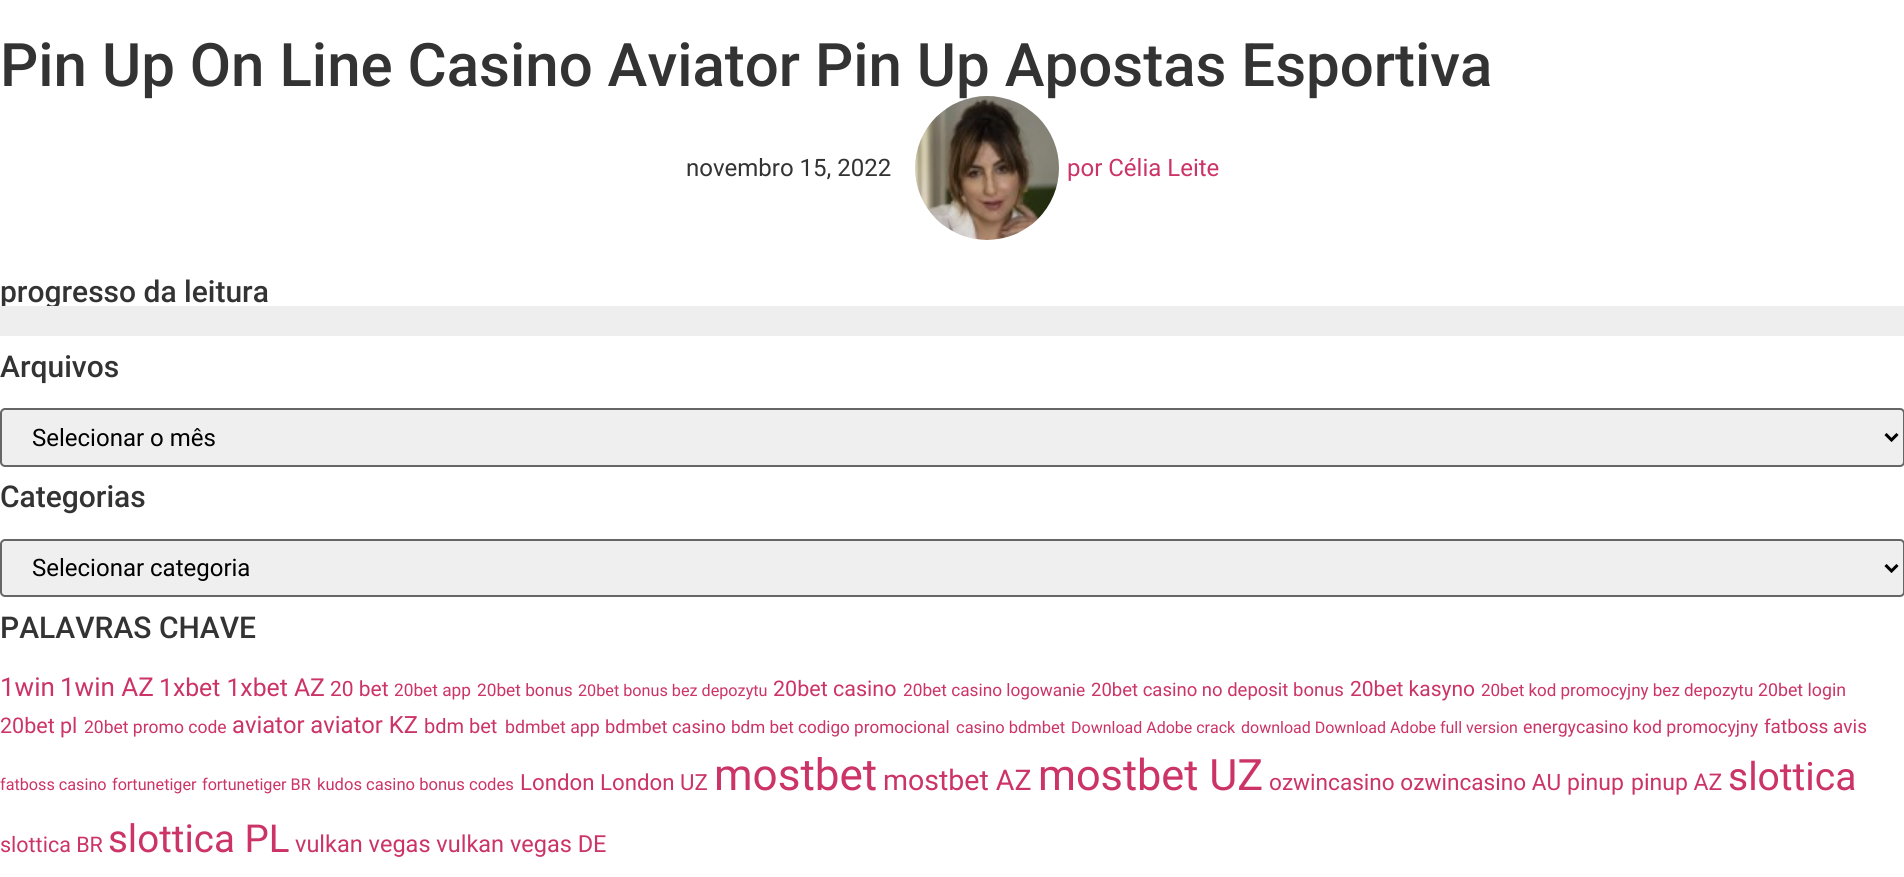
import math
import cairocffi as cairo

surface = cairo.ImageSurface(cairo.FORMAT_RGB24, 1904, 877)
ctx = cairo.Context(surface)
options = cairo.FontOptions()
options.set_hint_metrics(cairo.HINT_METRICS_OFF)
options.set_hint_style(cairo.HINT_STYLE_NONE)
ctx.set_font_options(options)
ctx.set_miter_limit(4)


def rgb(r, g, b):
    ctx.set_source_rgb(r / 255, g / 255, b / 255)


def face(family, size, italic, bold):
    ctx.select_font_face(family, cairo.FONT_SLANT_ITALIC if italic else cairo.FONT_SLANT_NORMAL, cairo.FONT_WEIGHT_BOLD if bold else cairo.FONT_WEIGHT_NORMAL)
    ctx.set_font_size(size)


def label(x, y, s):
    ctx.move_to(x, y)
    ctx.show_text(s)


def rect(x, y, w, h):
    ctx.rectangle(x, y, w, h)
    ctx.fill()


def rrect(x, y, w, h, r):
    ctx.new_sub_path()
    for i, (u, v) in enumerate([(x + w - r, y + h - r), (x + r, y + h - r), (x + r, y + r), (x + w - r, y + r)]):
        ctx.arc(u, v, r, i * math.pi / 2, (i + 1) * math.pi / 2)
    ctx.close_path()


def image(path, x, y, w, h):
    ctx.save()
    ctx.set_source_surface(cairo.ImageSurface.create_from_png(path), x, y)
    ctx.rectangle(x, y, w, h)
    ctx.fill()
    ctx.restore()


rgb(255, 255, 255)
ctx.paint()
face('Roboto Medium', 60, 0, 0)
rgb(51, 51, 51)
label(0, 86, 'Pin Up On Line Casino Aviator Pin Up Apostas Esportiva')
face('Roboto', 24, 0, 0)
label(686, 176, 'novembro 15, 2022')
image('image0.png', 915, 96, 144, 144)
rgb(204, 51, 102)
label(1067, 176, 'por Célia Leite')
face('Roboto Medium', 30, 0, 0)
rgb(51, 51, 51)
label(0, 302, 'progresso da leitura')
rgb(238, 238, 238)
rect(0, 306, 1904, 30)
rgb(51, 51, 51)
label(0, 377, 'Arquivos')
rgb(239, 239, 239)
rrect(1, 409, 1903, 57, 4)
ctx.fill_preserve()
rgb(102, 102, 102)
ctx.stroke()
ctx.new_path()
ctx.move_to(1885.5, 434)
ctx.line_to(1891.5, 440)
ctx.line_to(1897.5, 434)
rgb(0, 0, 0)
ctx.set_line_width(3)
ctx.stroke()
face('Roboto', 24, 0, 0)
label(32, 446, 'Selecionar o mês')
face('Roboto Medium', 30, 0, 0)
rgb(51, 51, 51)
label(0, 507, 'Categorias')
rgb(239, 239, 239)
rrect(1, 540, 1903, 56, 4)
ctx.fill_preserve()
rgb(102, 102, 102)
ctx.set_line_width(2)
ctx.stroke()
ctx.new_path()
ctx.move_to(1885.5, 565)
ctx.line_to(1891.5, 571)
ctx.line_to(1897.5, 565)
rgb(0, 0, 0)
ctx.set_line_width(3)
ctx.stroke()
face('Roboto', 24, 0, 0)
label(32, 576, 'Selecionar categoria')
face('Roboto Medium', 30, 0, 0)
rgb(51, 51, 51)
label(0, 638, 'PALAVRAS CHAVE')
face('Roboto', 26, 0, 0)
rgb(204, 51, 102)
label(0, 696, '1win')
label(60, 696, '1win AZ')
face('Roboto', 24.75, 0, 0)
label(159, 696, '1xbet 1xbet AZ')
face('Roboto', 21, 0, 0)
label(330, 696, '20 bet')
face('Roboto', 17.25, 0, 0)
label(394, 696, '20bet app')
label(477, 696, '20bet bonus')
face('Roboto', 16.2, 0, 0)
label(578, 696, '20bet bonus bez depozytu')
face('Roboto', 21.5, 0, 0)
label(773, 696, '20bet casino')
face('Roboto', 17.25, 0, 0)
label(903, 696, '20bet casino logowanie')
face('Roboto', 18.5, 0, 0)
label(1091, 696, '20bet casino no deposit bonus')
face('Roboto', 21, 0, 0)
label(1350, 696, '20bet kasyno')
face('Roboto', 17, 0, 0)
label(1481, 696, '20bet kod promocyjny bez depozytu')
face('Roboto', 17.75, 0, 0)
label(1758, 696, '20bet login')
face('Roboto', 21.5, 0, 0)
label(0, 733, '20bet pl')
face('Roboto', 17.5, 0, 0)
label(84, 733, '20bet promo code')
face('Roboto', 23.75, 0, 0)
label(232, 733, 'aviator aviator KZ')
face('Roboto', 20, 0, 0)
label(424, 733, 'bdm bet')
face('Roboto', 17.75, 0, 0)
label(505, 733, 'bdmbet app')
face('Roboto', 18.25, 0, 0)
label(605, 733, 'bdmbet casino')
face('Roboto', 17.1, 0, 0)
label(731, 733, 'bdm bet codigo promocional')
face('Roboto', 16.5, 0, 0)
label(956, 733, 'casino bdmbet')
face('Roboto', 16, 0, 0)
label(1071, 733, 'Download Adobe crack')
label(1241, 733, 'download Download Adobe full version')
face('Roboto', 17.75, 0, 0)
label(1523, 733, 'energycasino kod promocyjny')
face('Roboto', 19, 0, 0)
label(1764, 733, 'fatboss avis')
face('Roboto', 16.2, 0, 0)
label(0, 790, 'fatboss casino')
label(112, 790, 'fortunetiger')
label(202, 790, 'fortunetiger BR')
face('Roboto', 16.6, 0, 0)
label(317, 790, 'kudos casino bonus codes')
face('Roboto', 22.25, 0, 0)
label(520, 790, 'London')
label(600, 790, 'London UZ')
face('Roboto', 44, 0, 0)
label(714, 790, 'mostbet')
face('Roboto', 28.5, 0, 0)
label(883, 790, 'mostbet AZ')
face('Roboto', 43.25, 0, 0)
label(1038, 790, 'mostbet UZ')
face('Roboto', 22.6, 0, 0)
label(1269, 790, 'ozwincasino ozwincasino AU')
face('Roboto', 23, 0, 0)
label(1567, 790, 'pinup')
label(1631, 790, 'pinup AZ')
face('Roboto', 39, 0, 0)
label(1728, 790, 'slottica')
face('Roboto', 21.5, 0, 0)
label(0, 852, 'slottica BR')
face('Roboto', 38.5, 0, 0)
label(108, 852, 'slottica PL')
face('Roboto', 23.5, 0, 0)
label(295, 852, 'vulkan vegas vulkan vegas DE')
surface.write_to_png('render.png')
